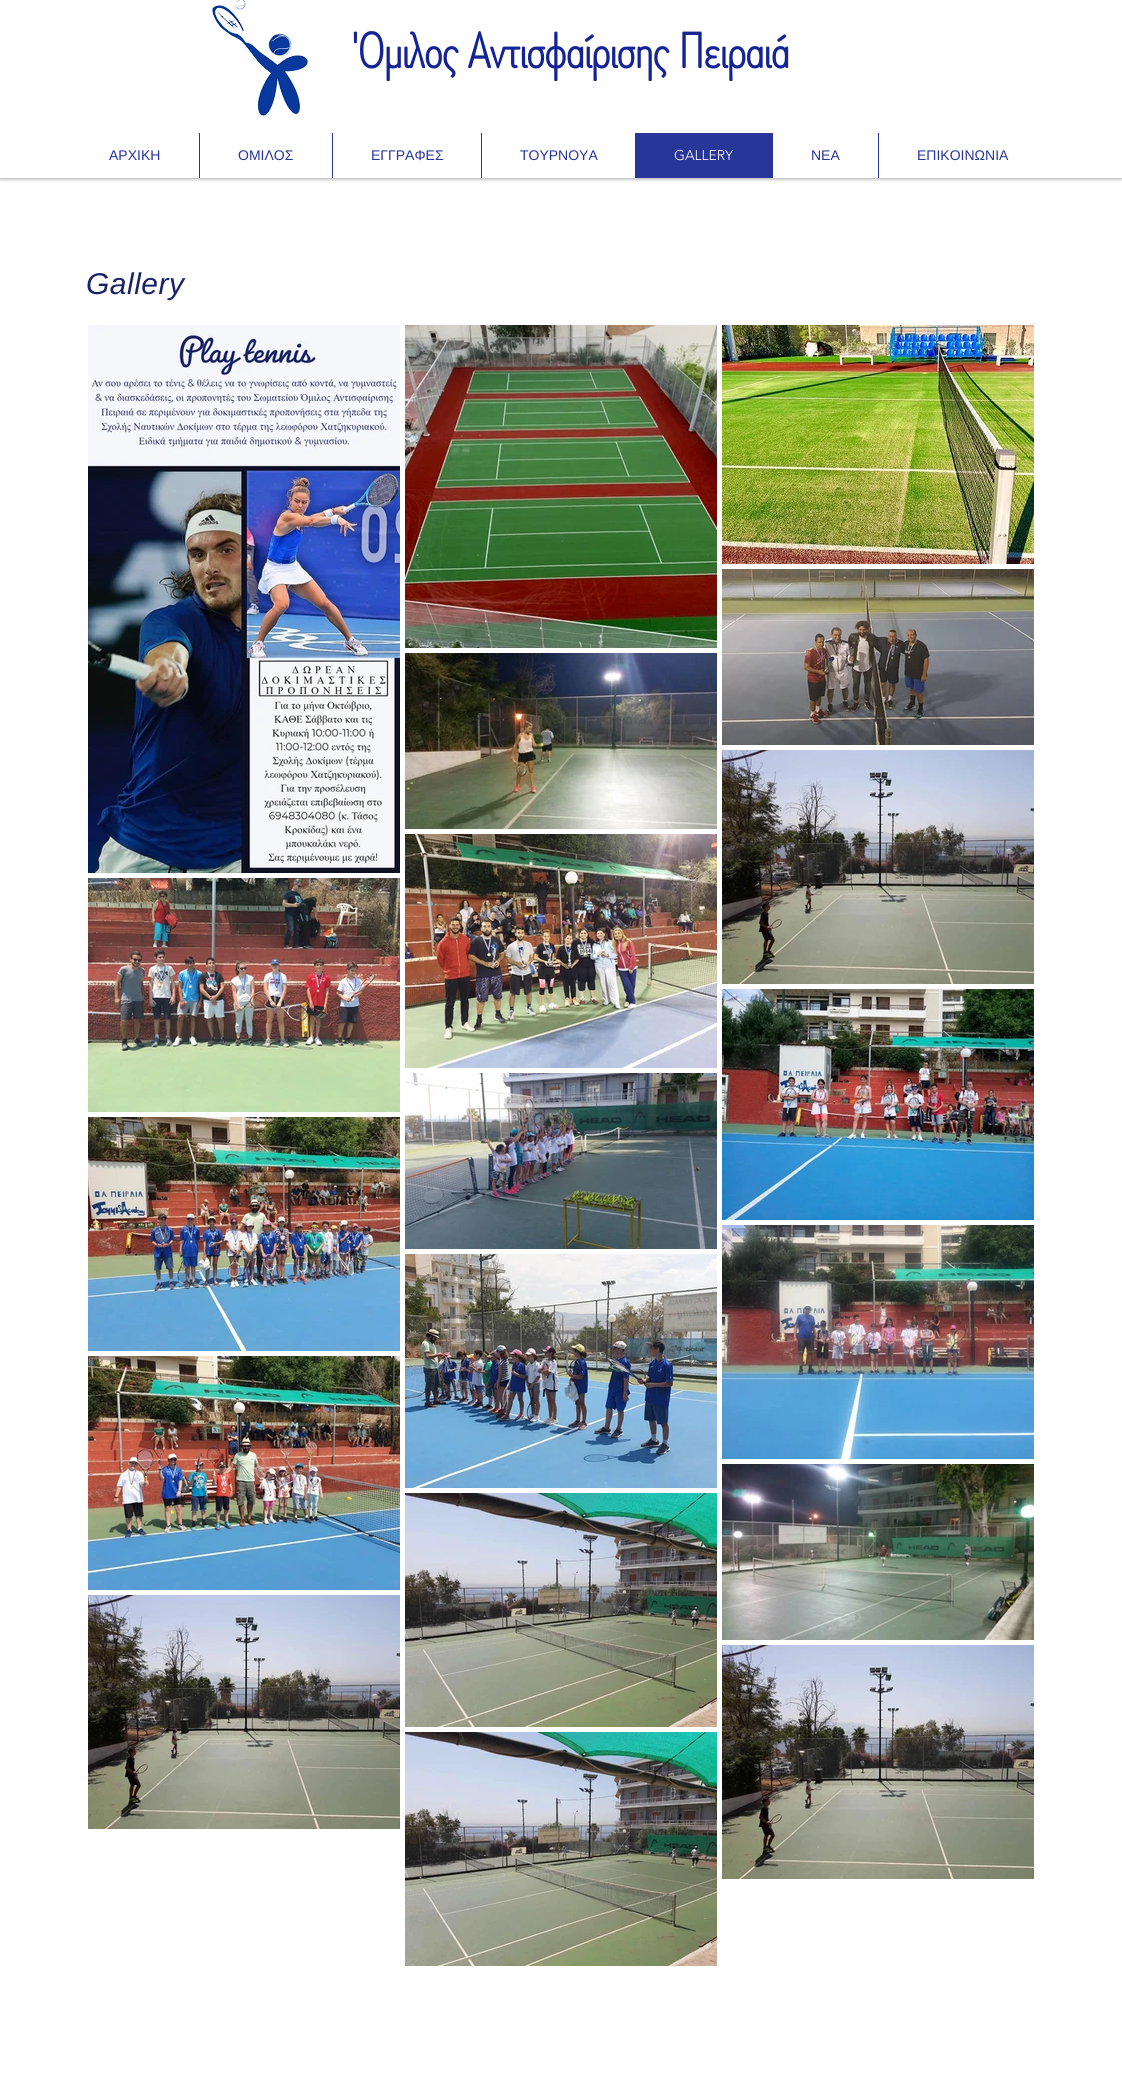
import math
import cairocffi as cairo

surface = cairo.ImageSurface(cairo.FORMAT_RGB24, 1122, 2079)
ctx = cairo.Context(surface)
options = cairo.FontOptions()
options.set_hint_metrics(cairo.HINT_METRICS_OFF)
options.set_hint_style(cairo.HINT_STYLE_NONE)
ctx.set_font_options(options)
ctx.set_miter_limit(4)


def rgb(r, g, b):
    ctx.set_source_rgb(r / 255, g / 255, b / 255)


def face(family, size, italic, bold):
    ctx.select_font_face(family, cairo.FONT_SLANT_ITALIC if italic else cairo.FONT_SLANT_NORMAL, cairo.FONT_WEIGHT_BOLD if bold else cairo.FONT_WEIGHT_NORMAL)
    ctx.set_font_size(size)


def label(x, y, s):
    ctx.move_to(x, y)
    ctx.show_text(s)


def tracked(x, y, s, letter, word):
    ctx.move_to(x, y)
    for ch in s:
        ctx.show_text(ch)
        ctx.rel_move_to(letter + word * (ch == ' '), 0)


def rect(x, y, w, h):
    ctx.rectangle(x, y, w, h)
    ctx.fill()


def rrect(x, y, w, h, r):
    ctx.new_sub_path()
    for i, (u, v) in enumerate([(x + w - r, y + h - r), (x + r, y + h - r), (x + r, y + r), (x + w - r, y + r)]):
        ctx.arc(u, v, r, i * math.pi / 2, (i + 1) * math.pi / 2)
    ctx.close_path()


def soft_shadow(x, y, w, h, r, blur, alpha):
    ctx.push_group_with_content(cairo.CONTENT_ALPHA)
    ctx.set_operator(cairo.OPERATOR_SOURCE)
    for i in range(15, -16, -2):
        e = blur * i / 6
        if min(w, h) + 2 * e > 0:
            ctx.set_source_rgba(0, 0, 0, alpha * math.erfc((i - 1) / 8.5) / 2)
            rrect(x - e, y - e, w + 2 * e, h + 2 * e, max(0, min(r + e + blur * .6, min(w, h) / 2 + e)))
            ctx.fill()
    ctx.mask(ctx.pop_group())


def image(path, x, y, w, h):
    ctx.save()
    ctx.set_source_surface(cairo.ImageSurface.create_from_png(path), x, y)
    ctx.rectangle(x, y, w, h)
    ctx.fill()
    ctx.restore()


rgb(255, 255, 255)
ctx.paint()
ctx.save()
ctx.rectangle(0, 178, 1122, 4)
ctx.clip()
rgb(0, 0, 0)
soft_shadow(0, 0, 1122, 178, 0, 2.5, 0.5)
ctx.restore()
image('image0.png', 212, 0, 96, 116)
face('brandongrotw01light', 50, 0, 1)
rgb(20, 35, 150)
tracked(351, 68, '\'Ομιλος Αντισφαίρισης Πειραιά', -1, 1)
face('Liberation Sans', 14, 0, 0)
rgb(40, 53, 153)
label(109, 160, 'ΑΡΧΙΚΗ')
rect(199, 133, 1, 45)
label(238, 160, 'ΟΜΙΛΟΣ')
rect(332, 133, 1, 45)
label(371, 160, 'ΕΓΓΡΑΦΕΣ')
rect(481, 133, 1, 45)
label(520, 160, 'ΤΟΥΡΝΟΥΑ')
rect(635, 133, 138, 45)
face('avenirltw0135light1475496 Light', 14, 0, 0)
rgb(255, 255, 255)
label(674, 160, 'GALLERY')
face('Liberation Sans', 14, 0, 0)
rgb(40, 53, 153)
label(811, 160, 'ΝΕΑ')
rect(878, 133, 1, 45)
label(917, 160, 'ΕΠΙΚΟΙΝΩΝΙΑ')
face('Liberation Sans', 30, 1, 0)
rgb(27, 35, 102)
tracked(86, 294, 'Gallery', 0.5, 0)
image('image1.png', 88, 325, 312, 548)
image('image2.png', 405, 325, 312, 323)
image('image3.png', 722, 325, 312, 239)
image('image4.png', 405, 653, 312, 176)
image('image5.png', 722, 569, 312, 176)
image('image6.png', 88, 878, 312, 234)
image('image7.png', 405, 834, 312, 234)
image('image8.png', 722, 750, 312, 234)
image('image9.png', 88, 1117, 312, 234)
image('image10.png', 405, 1073, 312, 176)
image('image11.png', 722, 989, 312, 231)
image('image12.png', 88, 1356, 312, 234)
image('image13.png', 405, 1254, 312, 234)
image('image14.png', 722, 1225, 312, 234)
image('image8.png', 88, 1595, 312, 234)
image('image15.png', 405, 1493, 312, 234)
image('image16.png', 722, 1464, 312, 176)
image('image15.png', 405, 1732, 312, 234)
image('image8.png', 722, 1645, 312, 234)
surface.write_to_png('render.png')
